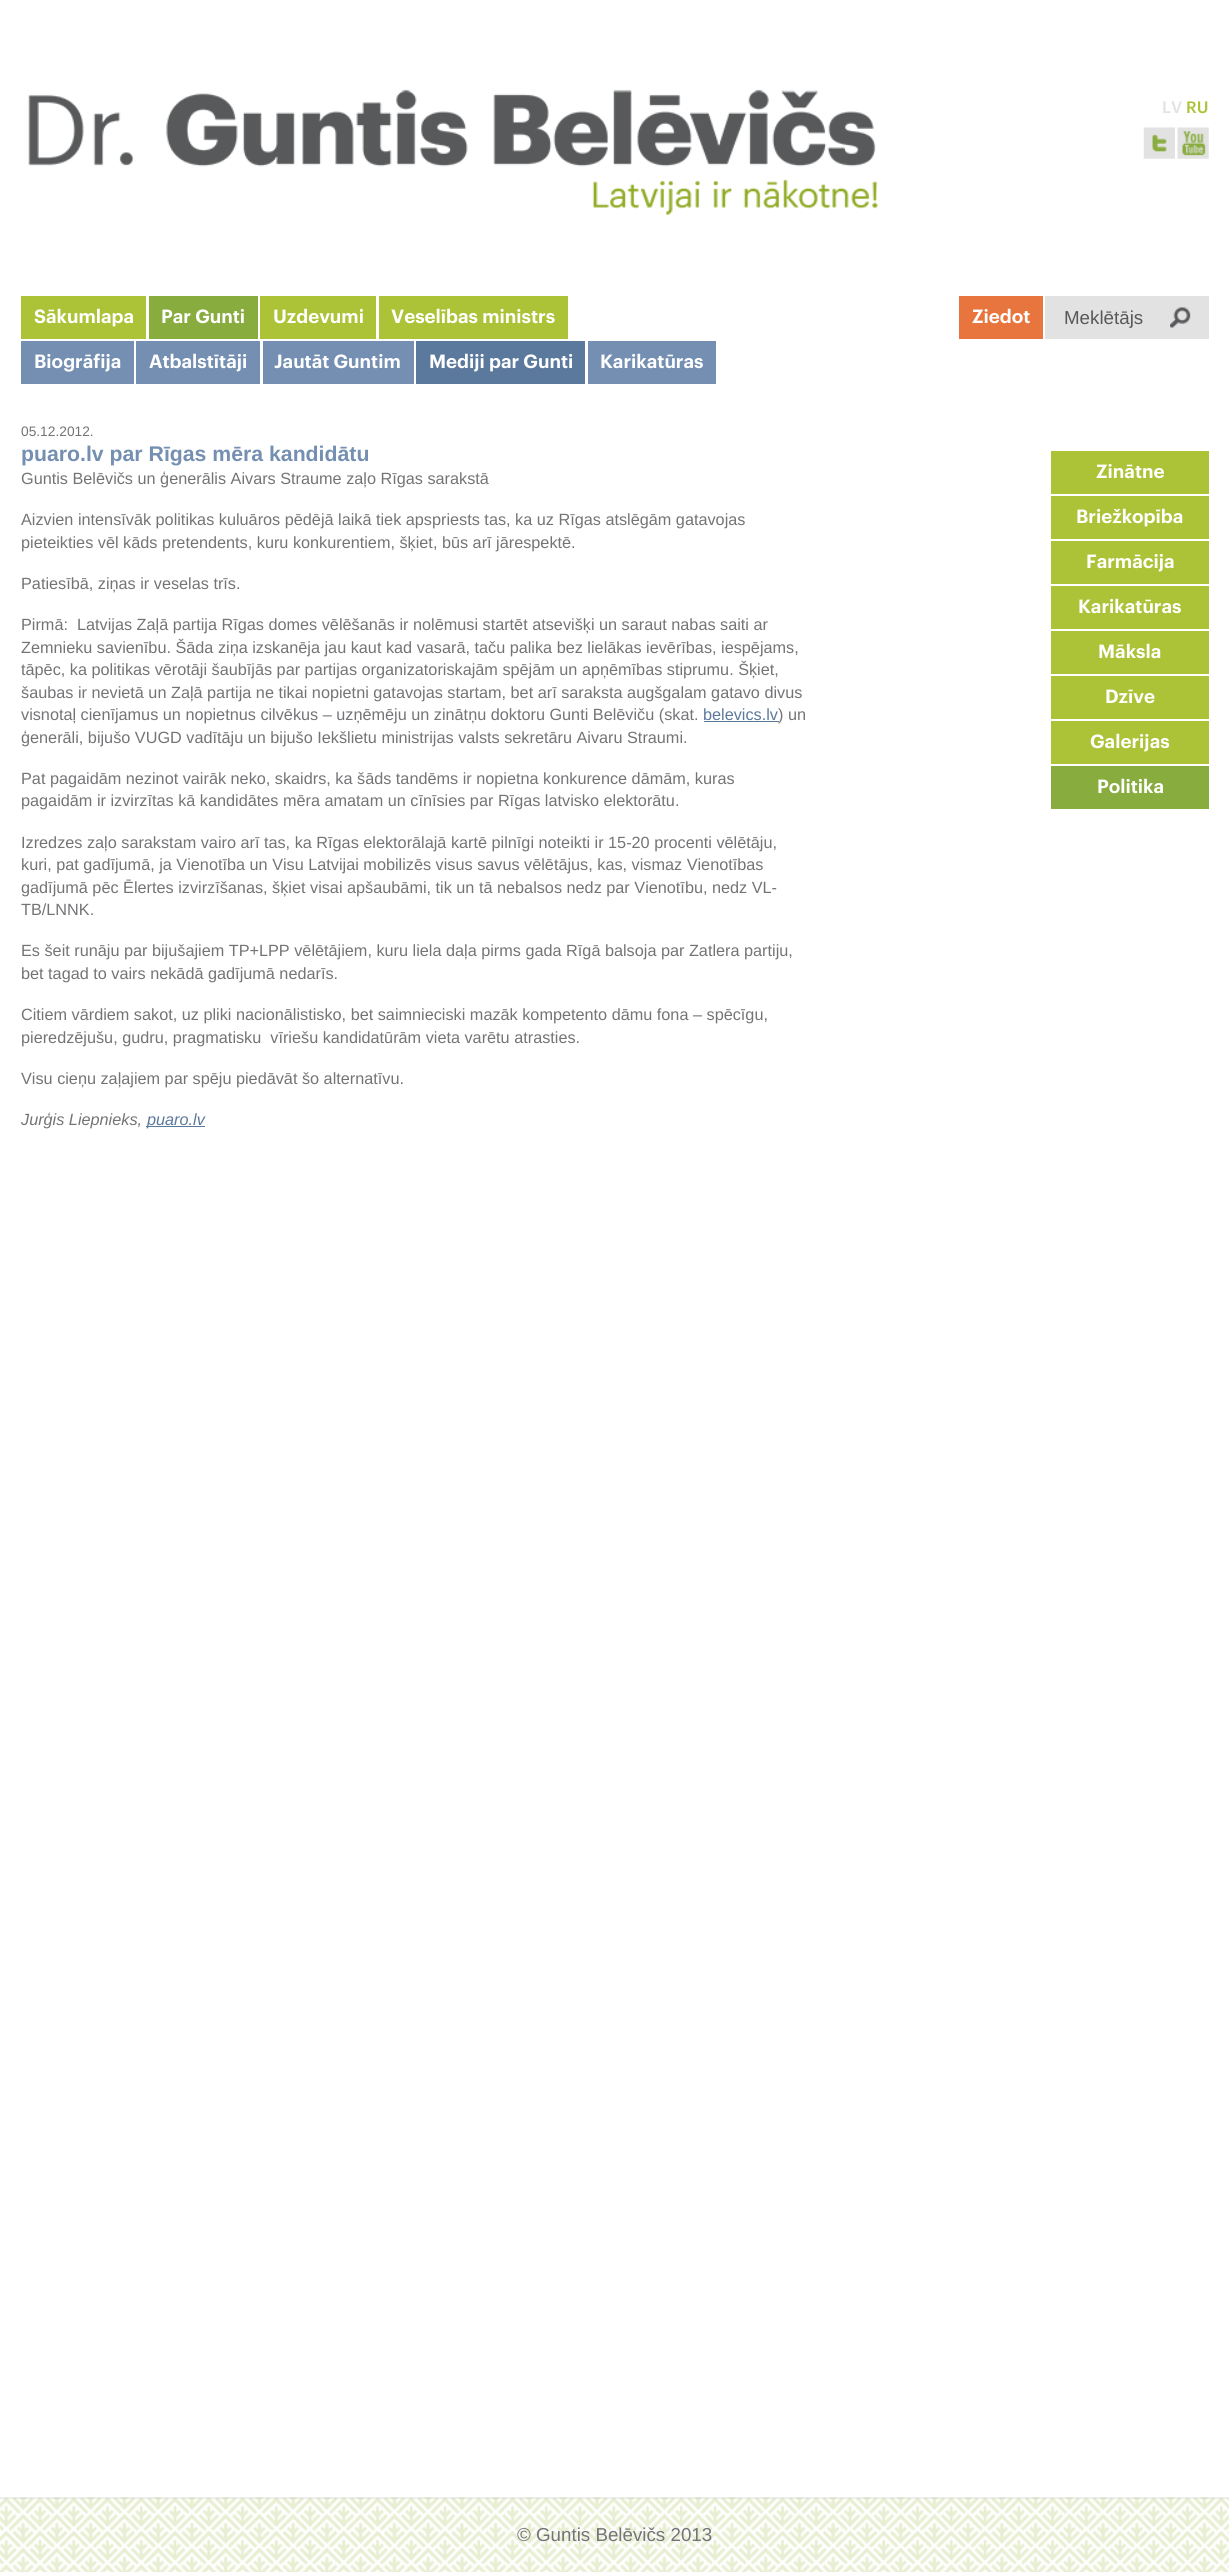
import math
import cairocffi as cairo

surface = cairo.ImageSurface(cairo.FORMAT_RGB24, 1229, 2572)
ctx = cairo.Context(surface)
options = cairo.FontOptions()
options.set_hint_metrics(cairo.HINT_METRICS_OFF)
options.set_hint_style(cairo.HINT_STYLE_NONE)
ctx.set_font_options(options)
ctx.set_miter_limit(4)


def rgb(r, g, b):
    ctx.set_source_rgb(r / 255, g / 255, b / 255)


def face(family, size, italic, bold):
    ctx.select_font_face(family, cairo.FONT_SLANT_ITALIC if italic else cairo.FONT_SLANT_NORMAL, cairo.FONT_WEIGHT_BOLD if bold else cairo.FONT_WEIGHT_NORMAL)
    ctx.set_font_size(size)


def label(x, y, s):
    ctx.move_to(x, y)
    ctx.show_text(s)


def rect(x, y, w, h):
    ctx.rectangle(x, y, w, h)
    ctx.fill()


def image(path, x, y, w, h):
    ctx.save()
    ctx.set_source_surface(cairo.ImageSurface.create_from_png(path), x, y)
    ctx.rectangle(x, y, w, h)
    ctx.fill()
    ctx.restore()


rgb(255, 255, 255)
ctx.paint()
image('image0.png', 0, 2497, 1229, 75)
image('image1.png', 28, 89, 850, 126)
face('Graphik Medium', 16.25, 0, 0)
rgb(226, 226, 226)
label(1162, 113, 'LV')
rgb(172, 195, 55)
label(1186, 113, 'RU')
image('image2.png', 1143, 127, 32, 32)
image('image3.png', 1177, 127, 32, 32)
rect(21, 296, 125, 43)
face('Graphik SemiBold', 18.75, 0, 0)
rgb(255, 255, 255)
label(34, 323, 'Sākumlapa')
rgb(137, 172, 63)
rect(149, 296, 109, 43)
rgb(255, 255, 255)
label(161, 323, 'Par Gunti')
rgb(116, 143, 177)
rect(21, 341, 113, 43)
rgb(255, 255, 255)
label(34, 368, 'Biogrāfija')
rgb(116, 143, 177)
rect(136, 341, 124, 43)
rgb(255, 255, 255)
label(149, 368, 'Atbalstītāji')
rgb(116, 143, 177)
rect(263, 341, 151, 43)
rgb(255, 255, 255)
label(274, 368, 'Jautāt Guntim')
rgb(91, 121, 156)
rect(416, 341, 169, 43)
rgb(255, 255, 255)
label(429, 368, 'Mediji par Gunti')
rgb(116, 143, 177)
rect(588, 341, 128, 43)
rgb(255, 255, 255)
label(600, 368, 'Karikatūras')
rgb(172, 195, 55)
rect(260, 296, 116, 43)
rgb(255, 255, 255)
label(273, 323, 'Uzdevumi')
rgb(172, 195, 55)
rect(379, 296, 189, 43)
rgb(255, 255, 255)
label(391, 323, 'Veselības ministrs')
rgb(231, 117, 61)
rect(959, 296, 84, 43)
rgb(255, 255, 255)
label(972, 323, 'Ziedot')
rgb(226, 226, 226)
rect(1045, 296, 164, 43)
image('image4.png', 1170, 307, 21, 21)
face('Liberation Sans', 18.75, 0, 0)
rgb(88, 88, 91)
label(1064, 324, 'Meklētājs')
face('Liberation Sans', 13.75, 0, 0)
rgb(116, 116, 119)
label(21, 436, '05.12.2012.')
face('Liberation Sans', 21.25, 0, 1)
rgb(116, 143, 177)
label(21, 461, 'puaro.lv par Rīgas mēra kandidātu')
face('Liberation Sans', 16.25, 0, 0)
rgb(116, 116, 119)
label(21, 484, 'Guntis Belēvičs un ģenerālis Aivars Straume zaļo Rīgas sarakstā')
label(21, 525, 'Aizvien intensīvāk politikas kuluāros pēdējā laikā tiek apspriests tas, ka uz Rīgas atslēgām gatavojas')
label(21, 548, 'pieteikties vēl kāds pretendents, kuru konkurentiem, šķiet, būs arī jārespektē.')
label(21, 589, 'Patiesībā, ziņas ir veselas trīs.')
label(21, 630, 'Pirmā:  Latvijas Zaļā partija Rīgas domes vēlēšanās ir nolēmusi startēt atsevišķi un saraut nabas saiti ar')
label(21, 653, 'Zemnieku savienību. Šāda ziņa izskanēja jau kaut kad vasarā, taču palika bez lielākas ievērības, iespējams,')
label(21, 675, 'tāpēc, ka politikas vērotāji šaubījās par partijas organizatoriskajām spējām un apņēmības stiprumu. Šķiet,')
label(21, 698, 'šaubas ir nevietā un Zaļā partija ne tikai nopietni gatavojas startam, bet arī saraksta augšgalam gatavo divus')
label(21, 720, 'visnotaļ cienījamus un nopietnus cilvēkus – uzņēmēju un zinātņu doktoru Gunti Belēviču (skat.')
rgb(91, 121, 156)
label(703, 720, 'belevics.lv')
rect(704, 721, 75, 1)
rgb(116, 116, 119)
label(778, 720, ') un')
label(21, 743, 'ģenerāli, bijušo VUGD vadītāju un bijušo Iekšlietu ministrijas valsts sekretāru Aivaru Straumi.')
label(21, 784, 'Pat pagaidām nezinot vairāk neko, skaidrs, ka šāds tandēms ir nopietna konkurence dāmām, kuras')
label(21, 806, 'pagaidām ir izvirzītas kā kandidātes mēra amatam un cīnīsies par Rīgas latvisko elektorātu.')
label(21, 848, 'Izredzes zaļo sarakstam vairo arī tas, ka Rīgas elektorālajā kartē pilnīgi noteikti ir 15-20 procenti vēlētāju,')
label(21, 870, 'kuri, pat gadījumā, ja Vienotība un Visu Latvijai mobilizēs visus savus vēlētājus, kas, vismaz Vienotības')
label(21, 893, 'gadījumā pēc Ēlertes izvirzīšanas, šķiet visai apšaubāmi, tik un tā nebalsos nedz par Vienotību, nedz VL-')
label(21, 915, 'TB/LNNK.')
label(21, 956, 'Es šeit runāju par bijušajiem TP+LPP vēlētājiem, kuru liela daļa pirms gada Rīgā balsoja par Zatlera partiju,')
label(21, 979, 'bet tagad to vairs nekādā gadījumā nedarīs.')
label(21, 1020, 'Citiem vārdiem sakot, uz pliki nacionālistisko, bet saimnieciski mazāk kompetento dāmu fona – spēcīgu,')
label(21, 1043, 'pieredzējušu, gudru, pragmatisku  vīriešu kandidatūrām vieta varētu atrasties.')
label(21, 1084, 'Visu cieņu zaļajiem par spēju piedāvāt šo alternatīvu.')
face('Liberation Sans', 16.25, 1, 0)
label(21, 1125, 'Jurģis Liepnieks,')
rgb(91, 121, 156)
rect(146, 1126, 59, 1)
label(147, 1125, 'puaro.lv')
rgb(172, 195, 55)
rect(1051, 451, 158, 43)
face('Graphik SemiBold', 18.75, 0, 0)
rgb(255, 255, 255)
label(1096, 478, 'Zinātne')
rgb(172, 195, 55)
rect(1051, 496, 158, 43)
rgb(255, 255, 255)
label(1076, 523, 'Briežkopība')
rgb(172, 195, 55)
rect(1051, 541, 158, 43)
rgb(255, 255, 255)
label(1086, 568, 'Farmācija')
rgb(172, 195, 55)
rect(1051, 586, 158, 43)
rgb(255, 255, 255)
label(1078, 613, 'Karikatūras')
rgb(172, 195, 55)
rect(1051, 631, 158, 43)
rgb(255, 255, 255)
label(1098, 658, 'Māksla')
rgb(172, 195, 55)
rect(1051, 676, 158, 43)
rgb(255, 255, 255)
label(1105, 703, 'Dzīve')
rgb(172, 195, 55)
rect(1051, 721, 158, 43)
rgb(255, 255, 255)
label(1090, 748, 'Galerijas')
rgb(137, 172, 63)
rect(1051, 766, 158, 43)
rgb(255, 255, 255)
label(1097, 793, 'Politika')
image('image5.png', 0, 2497, 1229, 2)
face('Liberation Sans', 18.75, 0, 0)
rgb(116, 116, 119)
label(517, 2541, '© Guntis Belēvičs 2013')
surface.write_to_png('render.png')
